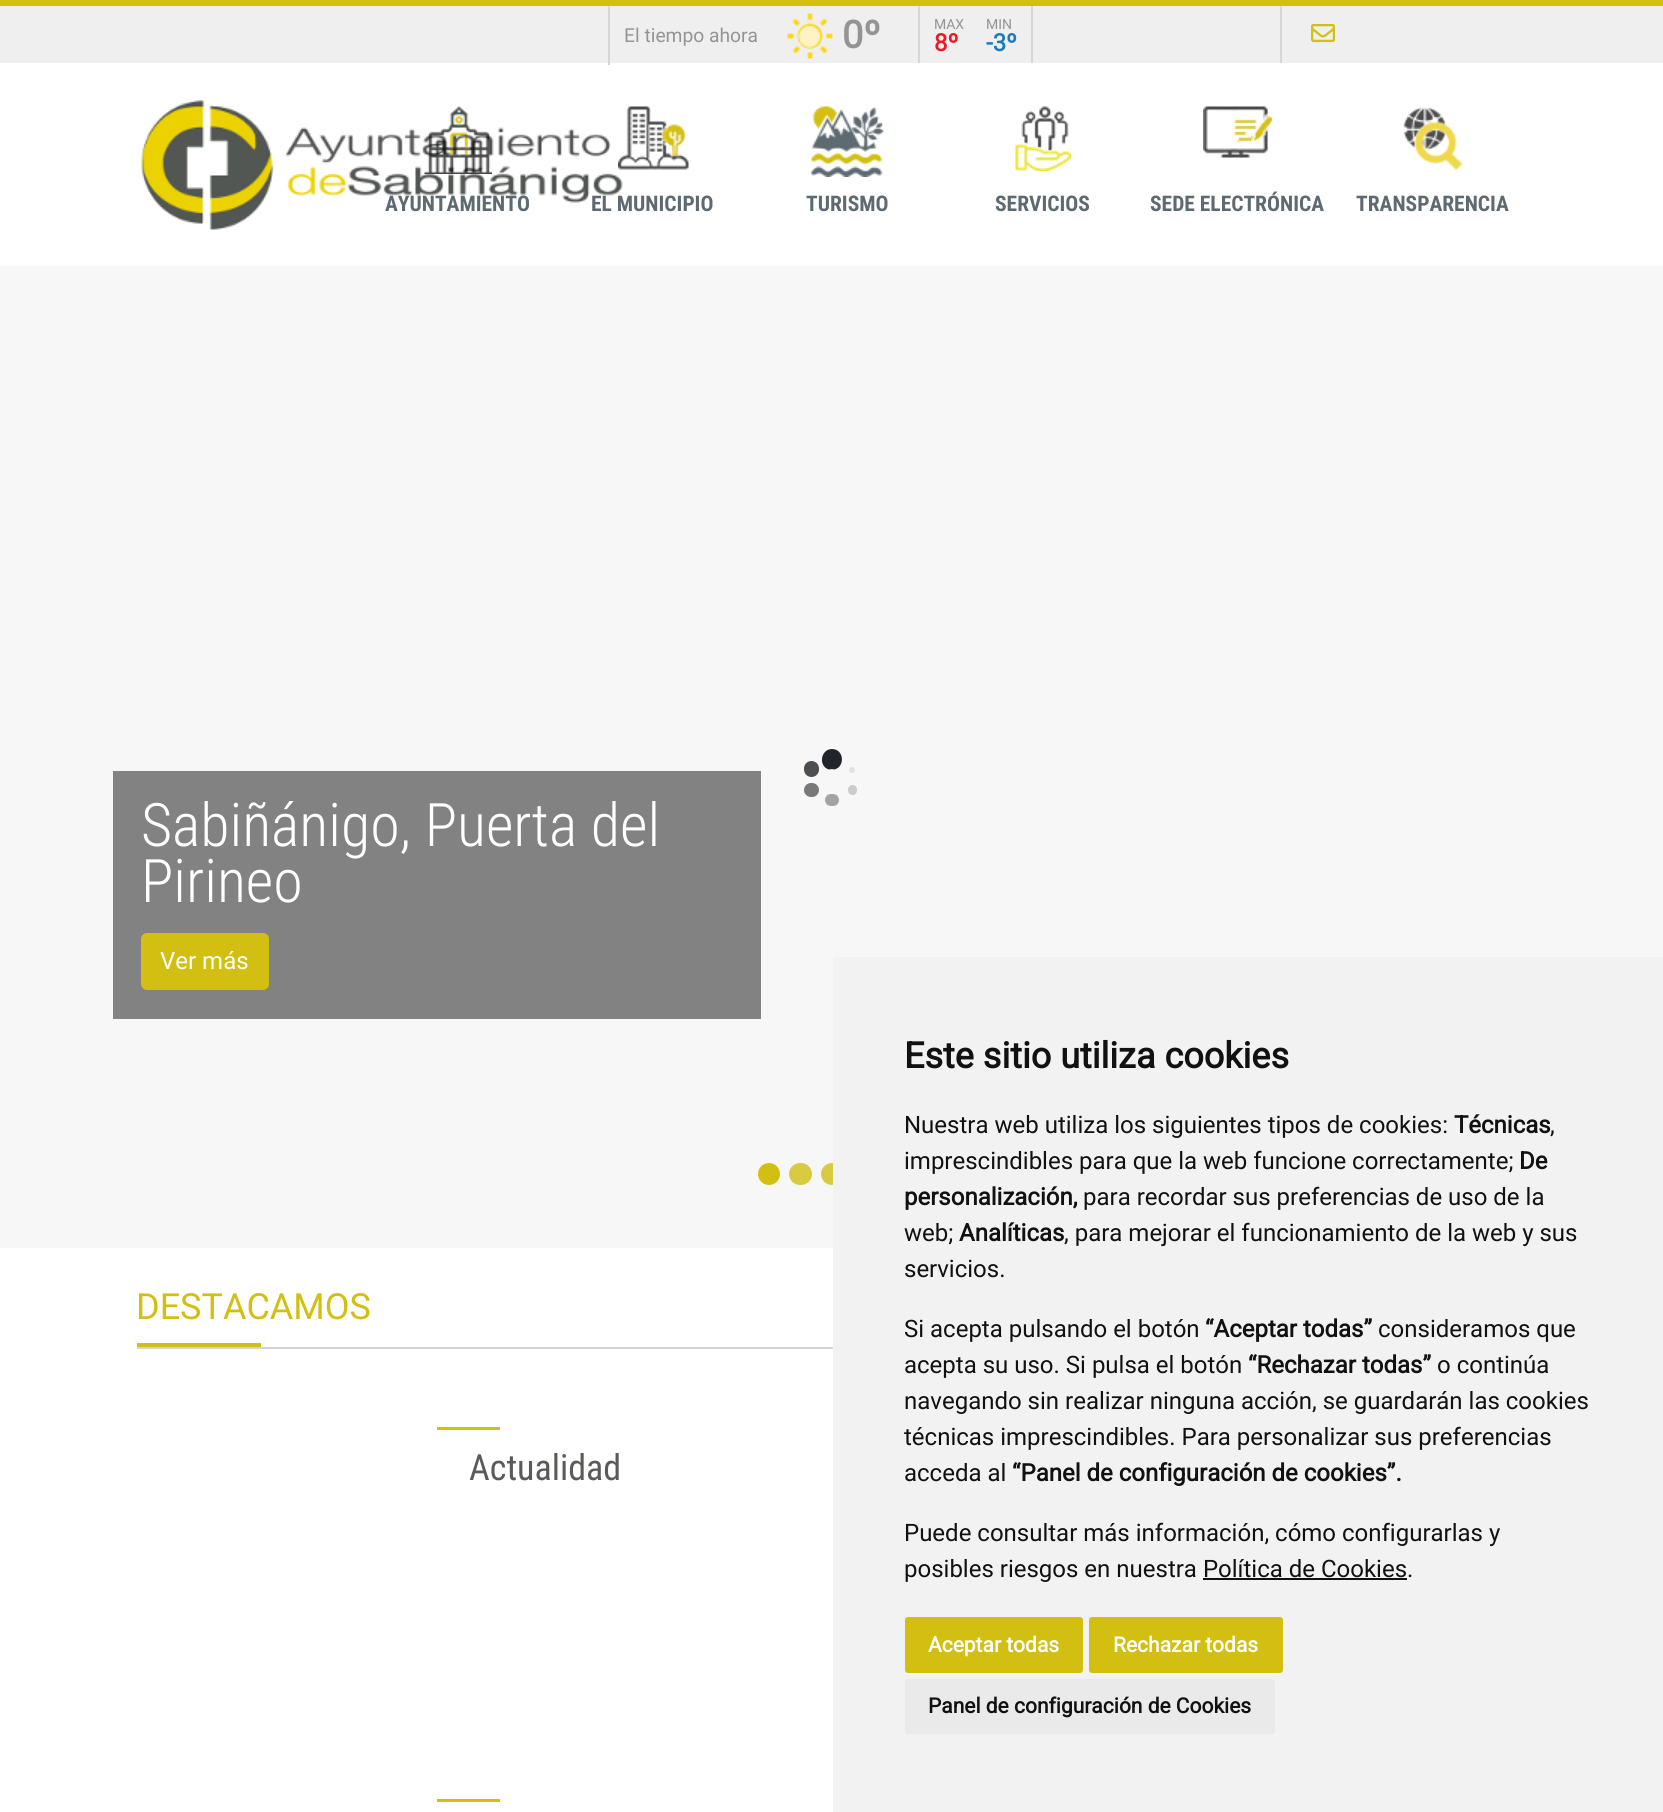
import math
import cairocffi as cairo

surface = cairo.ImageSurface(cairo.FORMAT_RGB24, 1663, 1812)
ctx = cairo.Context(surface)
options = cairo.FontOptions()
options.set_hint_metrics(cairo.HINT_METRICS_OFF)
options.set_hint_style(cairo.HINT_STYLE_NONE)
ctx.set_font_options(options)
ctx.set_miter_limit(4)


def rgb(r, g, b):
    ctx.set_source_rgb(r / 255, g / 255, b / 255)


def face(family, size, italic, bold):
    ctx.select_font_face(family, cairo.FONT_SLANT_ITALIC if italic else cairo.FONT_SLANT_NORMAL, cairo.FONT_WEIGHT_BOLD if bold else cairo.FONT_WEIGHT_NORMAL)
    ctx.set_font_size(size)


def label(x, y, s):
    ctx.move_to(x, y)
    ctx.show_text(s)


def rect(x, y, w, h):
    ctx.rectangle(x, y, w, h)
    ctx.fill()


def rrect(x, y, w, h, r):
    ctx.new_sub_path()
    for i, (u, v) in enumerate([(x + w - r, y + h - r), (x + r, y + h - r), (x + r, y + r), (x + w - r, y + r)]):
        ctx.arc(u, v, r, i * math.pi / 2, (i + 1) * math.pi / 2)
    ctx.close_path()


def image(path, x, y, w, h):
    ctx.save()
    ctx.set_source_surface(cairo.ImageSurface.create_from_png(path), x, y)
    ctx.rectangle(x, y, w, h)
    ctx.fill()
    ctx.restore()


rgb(255, 255, 255)
ctx.paint()
rgb(239, 239, 239)
rect(0, 6, 1663, 57)
rgb(211, 191, 17)
rect(0, 0, 1663, 6)
rgb(214, 214, 214)
rect(608, 6, 2, 59)
face('Roboto', 19.25, 0, 0)
rgb(148, 148, 148)
label(624, 42, 'El tiempo ahora')
image('image0.png', 787, 13, 46, 46)
face('Roboto', 38, 0, 1)
label(842, 48, '0º')
rgb(214, 214, 214)
rect(918, 6, 2, 57)
face('Roboto', 14, 0, 0)
rgb(148, 148, 148)
label(934, 29, 'MAX')
face('Roboto', 24, 0, 1)
rgb(237, 28, 36)
label(934, 51, '8º')
face('Roboto', 14, 0, 0)
rgb(148, 148, 148)
label(986, 29, 'MIN')
face('Roboto', 24, 0, 1)
rgb(29, 123, 185)
label(986, 51, '-3º')
rgb(214, 214, 214)
rect(1031, 6, 2, 57)
rect(1280, 6, 2, 57)
image('image1.png', 1311, 24, 24, 18)
image('image3.png', 424, 106, 68, 68)
face('Roboto Condensed', 21.5, 0, 1)
rgb(94, 106, 113)
label(385, 211, 'AYUNTAMIENTO')
image('image4.png', 618, 106, 71, 64)
label(591, 211, 'EL MUNICIPIO')
image('image2.png', 140, 100, 483, 130)
image('image5.png', 811, 106, 73, 71)
label(806, 211, 'TURISMO')
image('image6.png', 1015, 106, 56, 65)
label(995, 211, 'SERVICIOS')
image('image7.png', 1203, 106, 69, 52)
label(1150, 211, 'SEDE ELECTRÓNICA')
image('image8.png', 1403, 107, 60, 64)
label(1356, 211, 'TRANSPARENCIA')
rgb(247, 247, 247)
rect(0, 266, 1663, 982)
rgb(76, 79, 82)
rrect(804, 761, 15, 16, 7.5)
ctx.fill()
rgb(119, 121, 123)
rrect(804, 783, 15, 14, 7)
ctx.fill()
rgb(161, 163, 165)
rrect(825, 794, 14, 12, 6)
ctx.fill()
rgb(204, 205, 206)
rrect(848, 785, 9, 10, 4.5)
ctx.fill()
rgb(226, 226, 226)
ctx.arc(852, 770, 3, 0, 2 * math.pi)
ctx.fill()
rgb(33, 37, 41)
ctx.new_path()
ctx.move_to(832, 749)
ctx.curve_to(820.5, 749, 818, 766.5, 829, 769.5)
ctx.curve_to(831, 769, 833, 769, 834.5, 769.5)
ctx.curve_to(845.5, 766.5, 844, 749, 832, 749)
ctx.close_path()
ctx.fill()
rgb(130, 130, 130)
rect(113, 771, 648, 248)
face('Roboto Condensed Light', 60, 0, 0)
rgb(255, 255, 255)
label(141, 846, 'Sabiñánigo, Puerta del')
label(141, 902, 'Pirineo')
rgb(211, 191, 17)
rrect(142, 934, 126, 55, 5)
ctx.fill_preserve()
ctx.stroke()
face('Roboto', 24, 0, 0)
rgb(255, 255, 255)
label(160, 969, 'Ver más')
rgb(211, 191, 17)
ctx.new_path()
ctx.arc(769, 1174, 11, 0, 2 * math.pi)
ctx.fill()
rgb(218, 202, 63)
rrect(789, 1163, 23, 22, 11)
ctx.fill()
ctx.arc(832, 1174, 11, 0, 2 * math.pi)
ctx.fill()
rgb(212, 212, 212)
rect(137, 1347, 696, 2)
face('Roboto', 36, 0, 0)
rgb(211, 191, 17)
label(136, 1319, 'DESTACAMOS')
rect(137, 1343, 124, 4)
rect(437, 1427, 63, 3)
face('Roboto Condensed', 36, 0, 0)
rgb(90, 90, 87)
label(469, 1480, 'Actualidad')
rgb(211, 191, 17)
rect(437, 1799, 63, 3)
rgb(242, 242, 242)
rect(833, 957, 830, 855)
face('Roboto', 36, 0, 1)
rgb(17, 17, 17)
label(904, 1068, 'Este sitio utiliza cookies')
face('Roboto', 24, 0, 0)
label(904, 1133, 'Nuestra web utiliza los siguientes tipos de cookies:')
face('Roboto', 24, 0, 1)
label(1454, 1133, 'Técnicas')
face('Roboto', 24, 0, 0)
label(1550, 1133, ',')
label(904, 1169, 'imprescindibles para que la web funcione correctamente;')
face('Roboto', 24, 0, 1)
label(1519, 1169, 'De')
label(904, 1205, 'personalización,')
face('Roboto', 24, 0, 0)
label(1083, 1205, 'para recordar sus preferencias de uso de la')
label(904, 1241, 'web;')
face('Roboto', 24, 0, 1)
label(959, 1241, 'Analíticas')
face('Roboto', 24, 0, 0)
label(1064, 1241, ', para mejorar el funcionamiento de la web y sus')
label(904, 1277, 'servicios.')
label(904, 1337, 'Si acepta pulsando el botón')
face('Roboto', 24, 0, 1)
label(1205, 1337, '“Aceptar todas”')
face('Roboto', 24, 0, 0)
label(1378, 1337, 'consideramos que')
label(904, 1373, 'acepta su uso. Si pulsa el botón')
face('Roboto', 24, 0, 1)
label(1248, 1373, '“Rechazar todas”')
face('Roboto', 24, 0, 0)
label(1437, 1373, 'o continúa')
label(904, 1409, 'navegando sin realizar ninguna acción, se guardarán las cookies')
label(904, 1445, 'técnicas imprescindibles. Para personalizar sus preferencias')
label(904, 1481, 'acceda al')
face('Roboto', 24, 0, 1)
label(1012, 1481, '“Panel de configuración de cookies”.')
face('Roboto', 24, 0, 0)
label(904, 1541, 'Puede consultar más información, cómo configurarlas y')
label(904, 1577, 'posibles riesgos en nuestra Política de Cookies.')
rect(1203, 1578, 204, 2)
rgb(211, 191, 17)
rrect(905, 1617, 178, 56, 3)
ctx.fill()
face('Roboto', 21, 0, 1)
rgb(255, 255, 255)
label(928, 1652, 'Aceptar todas')
rgb(211, 191, 17)
rrect(1089, 1617, 194, 56, 3)
ctx.fill()
rgb(255, 255, 255)
label(1113, 1652, 'Rechazar todas')
rgb(234, 234, 234)
rrect(905, 1679, 370, 55, 3)
ctx.fill()
rgb(17, 17, 17)
label(928, 1713, 'Panel de configuración de Cookies')
surface.write_to_png('render.png')
